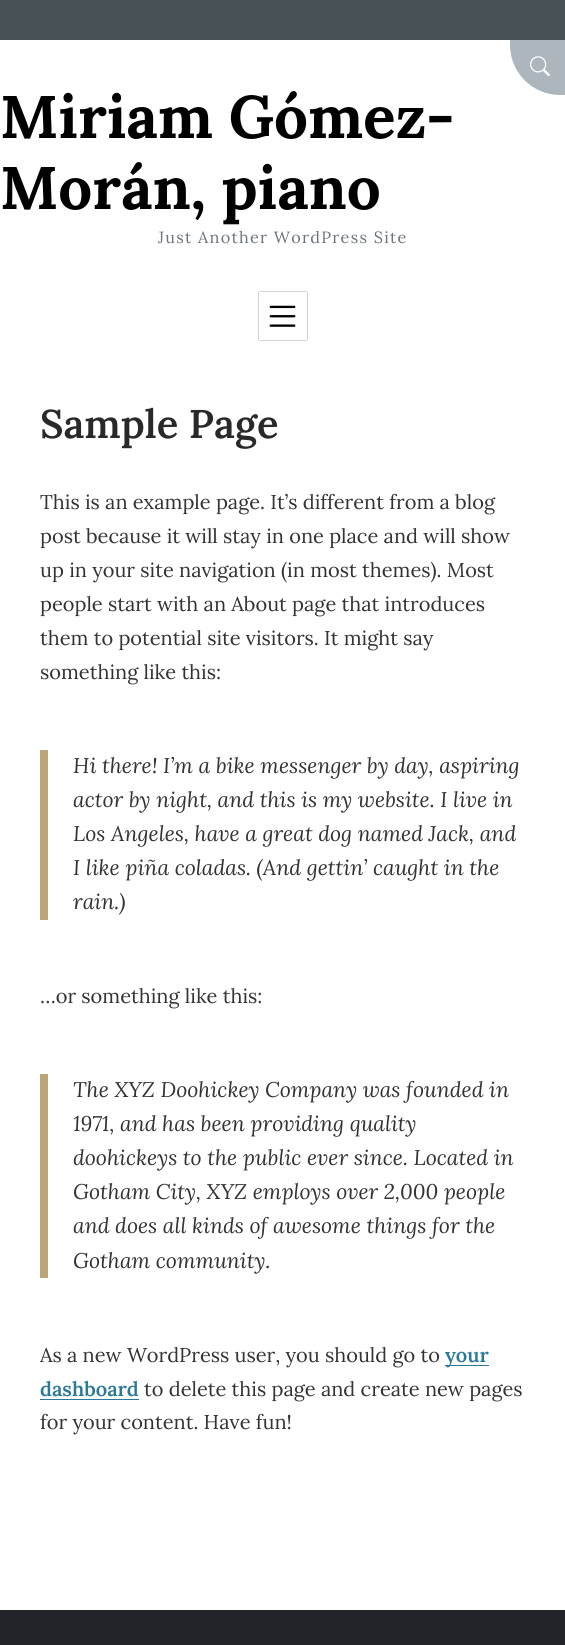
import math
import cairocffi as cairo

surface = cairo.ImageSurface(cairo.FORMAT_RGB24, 565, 1645)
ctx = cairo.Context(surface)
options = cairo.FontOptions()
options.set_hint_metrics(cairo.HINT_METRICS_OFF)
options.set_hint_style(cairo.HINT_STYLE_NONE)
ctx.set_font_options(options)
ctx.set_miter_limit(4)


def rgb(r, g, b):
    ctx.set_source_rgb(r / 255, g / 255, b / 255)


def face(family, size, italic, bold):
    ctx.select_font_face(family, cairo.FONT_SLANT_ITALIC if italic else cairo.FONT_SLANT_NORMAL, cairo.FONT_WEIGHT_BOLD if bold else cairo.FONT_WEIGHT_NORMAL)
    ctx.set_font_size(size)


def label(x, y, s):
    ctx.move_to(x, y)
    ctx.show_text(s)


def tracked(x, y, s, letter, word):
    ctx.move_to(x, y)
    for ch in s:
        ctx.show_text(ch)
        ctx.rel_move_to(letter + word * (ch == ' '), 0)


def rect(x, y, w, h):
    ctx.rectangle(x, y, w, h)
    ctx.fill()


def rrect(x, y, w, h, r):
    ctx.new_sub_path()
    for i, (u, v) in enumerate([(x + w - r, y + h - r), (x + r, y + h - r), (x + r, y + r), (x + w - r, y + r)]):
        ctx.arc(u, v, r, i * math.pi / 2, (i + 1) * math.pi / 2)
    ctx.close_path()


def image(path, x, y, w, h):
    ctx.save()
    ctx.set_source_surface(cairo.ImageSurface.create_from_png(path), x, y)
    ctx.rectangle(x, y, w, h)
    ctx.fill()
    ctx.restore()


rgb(70, 81, 86)
ctx.paint()
rgb(255, 255, 255)
rect(0, 40, 565, 1570)
rgb(173, 181, 189)
ctx.new_path()
ctx.move_to(510, 40)
ctx.line_to(565, 40)
ctx.line_to(565, 95)
ctx.line_to(560, 95)
ctx.curve_to(532.5, 95, 510, 72.5, 510, 45)
ctx.close_path()
ctx.fill()
image('image0.png', 530, 56, 20, 20)
face('Lora', 60, 0, 1)
rgb(0, 0, 0)
label(0, 138, 'Miriam Gómez-')
label(0, 209, 'Morán, piano')
face('Lora', 16.25, 0, 0)
rgb(108, 117, 125)
tracked(158, 243, 'Just Another WordPress Site', 1.25, 0)
rrect(258.5, 291.5, 49, 49, 2)
rgb(206, 212, 218)
ctx.set_line_width(1)
ctx.stroke()
image('image1.png', 269, 305, 27, 22)
face('Lora SemiBold', 40, 0, 0)
rgb(41, 41, 41)
label(40, 438, 'Sample Page')
face('Lora', 20, 0, 0)
rgb(51, 51, 51)
label(40, 509, 'This is an example page. It’s different from a blog')
label(40, 543, 'post because it will stay in one place and will show')
label(40, 577, 'up in your site navigation (in most themes). Most')
label(40, 611, 'people start with an About page that introduces')
label(40, 645, 'them to potential site visitors. It might say')
label(40, 679, 'something like this:')
rgb(187, 165, 121)
rect(40, 750, 8, 170)
face('Lora', 21.25, 1, 0)
rgb(51, 51, 51)
label(73, 773, 'Hi there! I’m a bike messenger by day, aspiring')
label(73, 807, 'actor by night, and this is my website. I live in')
label(73, 841, 'Los Angeles, have a great dog named Jack, and')
label(73, 875, 'I like piña coladas. (And gettin’ caught in the')
label(73, 909, 'rain.)')
face('Lora', 20, 0, 0)
label(40, 1003, '…or something like this:')
rgb(187, 165, 121)
rect(40, 1074, 8, 204)
face('Lora', 21.25, 1, 0)
rgb(51, 51, 51)
label(73, 1097, 'The XYZ Doohickey Company was founded in')
label(73, 1131, '1971, and has been providing quality')
label(73, 1165, 'doohickeys to the public ever since. Located in')
label(73, 1199, 'Gotham City, XYZ employs over 2,000 people')
label(73, 1233, 'and does all kinds of awesome things for the')
label(73, 1268, 'Gotham community.')
face('Lora', 20, 0, 0)
label(40, 1362, 'As a new WordPress user, you should go to')
rgb(43, 120, 155)
rect(445, 1365, 44, 1)
face('Lora SemiBold', 20, 0, 0)
label(445, 1362, 'your')
label(40, 1396, 'dashboard')
rect(40, 1399, 99, 1)
face('Lora', 20, 0, 0)
rgb(51, 51, 51)
label(144, 1396, 'to delete this page and create new pages')
label(40, 1429, 'for your content. Have fun!')
rgb(33, 37, 41)
rect(0, 1610, 565, 35)
surface.write_to_png('render.png')
